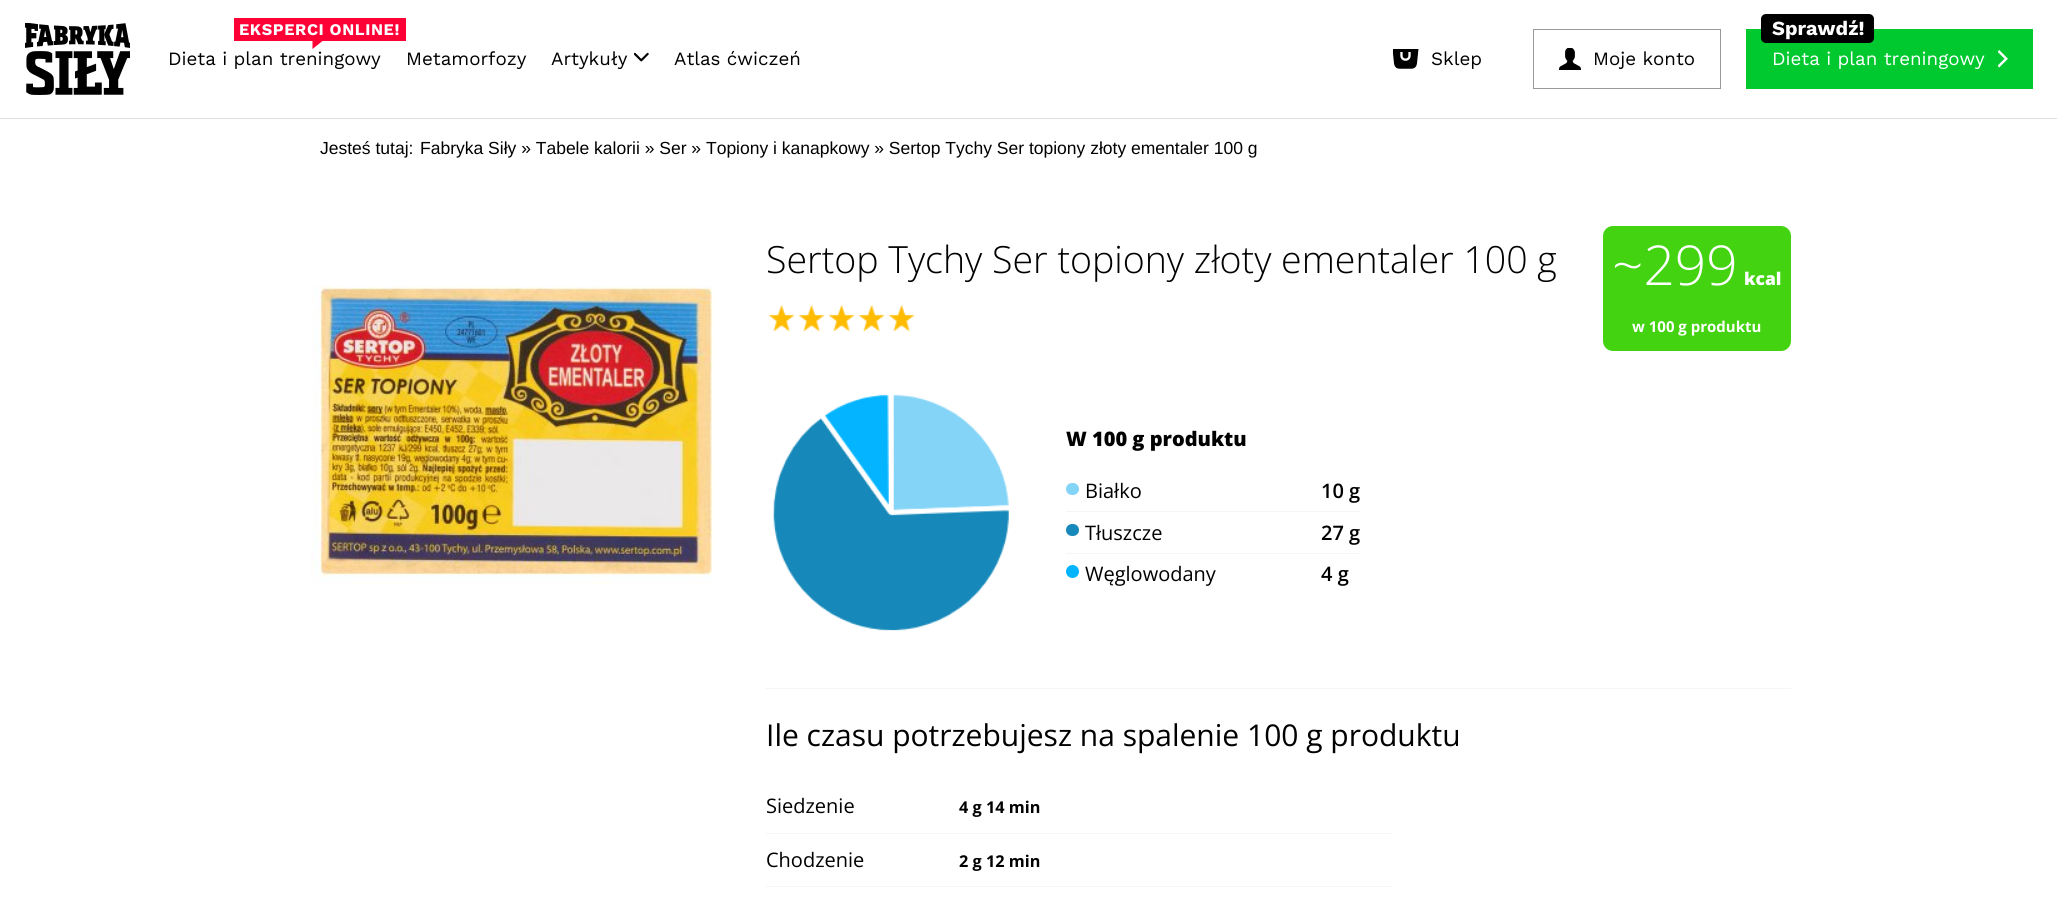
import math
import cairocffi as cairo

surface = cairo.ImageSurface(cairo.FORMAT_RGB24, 2057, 903)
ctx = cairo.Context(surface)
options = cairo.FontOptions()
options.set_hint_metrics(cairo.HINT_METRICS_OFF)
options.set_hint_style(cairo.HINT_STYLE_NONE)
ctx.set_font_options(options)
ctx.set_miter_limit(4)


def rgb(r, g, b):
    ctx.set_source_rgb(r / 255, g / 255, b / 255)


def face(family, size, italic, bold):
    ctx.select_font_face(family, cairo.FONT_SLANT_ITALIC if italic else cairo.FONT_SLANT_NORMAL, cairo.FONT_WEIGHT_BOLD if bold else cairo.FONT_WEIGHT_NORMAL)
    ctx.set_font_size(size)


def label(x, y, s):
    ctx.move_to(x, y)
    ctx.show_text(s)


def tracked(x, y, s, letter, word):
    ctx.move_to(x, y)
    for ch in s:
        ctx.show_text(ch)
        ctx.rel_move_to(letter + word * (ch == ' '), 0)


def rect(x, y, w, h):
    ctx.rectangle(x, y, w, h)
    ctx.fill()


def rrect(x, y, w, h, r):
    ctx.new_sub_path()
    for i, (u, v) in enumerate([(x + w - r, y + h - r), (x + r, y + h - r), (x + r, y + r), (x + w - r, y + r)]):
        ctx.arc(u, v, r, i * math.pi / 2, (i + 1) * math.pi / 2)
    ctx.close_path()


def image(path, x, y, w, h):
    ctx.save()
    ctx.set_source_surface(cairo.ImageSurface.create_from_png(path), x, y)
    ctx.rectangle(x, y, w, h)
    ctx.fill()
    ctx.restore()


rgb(255, 255, 255)
ctx.paint()
rgb(223, 223, 223)
rect(0, 118, 2057, 1)
image('image0.png', 25, 23, 105, 72)
rgb(255, 0, 54)
rect(234, 18, 172, 23)
face('Work Sans', 16.25, 0, 1)
rgb(255, 255, 255)
tracked(239, 35, 'EKSPERCI ONLINE!', 0.6, 0)
rgb(255, 0, 54)
ctx.new_path()
ctx.move_to(312.5, 41)
ctx.line_to(322.5, 41)
ctx.line_to(312.5, 49)
ctx.close_path()
ctx.fill()
face('Work Sans', 18.75, 0, 0)
rgb(0, 0, 0)
label(168, 65, 'Dieta i plan treningowy')
label(406, 65, 'Metamorfozy')
label(551, 65, 'Artykuły')
image('image1.png', 634, 52, 15, 10)
label(674, 65, 'Atlas ćwiczeń')
image('image2.png', 1393, 49, 26, 20)
label(1431, 65, 'Sklep')
ctx.rectangle(1533.5, 29.5, 187, 59)
rgb(153, 153, 153)
ctx.set_line_width(1)
ctx.stroke()
image('image3.png', 1559, 48, 22, 22)
rgb(0, 0, 0)
label(1593, 65, 'Moje konto')
rgb(0, 200, 47)
rect(1746, 29, 287, 60)
rgb(0, 0, 0)
rrect(1761, 14, 113, 29, 5)
ctx.fill()
face('Work Sans', 20, 0, 1)
rgb(255, 255, 255)
label(1772, 35, 'Sprawdź!')
face('Work Sans', 18.75, 0, 0)
label(1772, 65, 'Dieta i plan treningowy')
image('image4.png', 1998, 50, 10, 18)
face('Liberation Sans', 17.5, 0, 0)
rgb(0, 0, 0)
label(320, 154, 'Jesteś tutaj:')
label(420, 154, 'Fabryka Siły » Tabele kalorii » Ser » Topiony i kanapkowy » Sertop Tychy Ser topiony złoty ementaler 100 g')
image('image5.png', 311, 285, 402, 299)
face('Open Sans Light', 37.5, 0, 0)
label(766, 273, 'Sertop Tychy Ser topiony złoty ementaler 100 g')
rgb(67, 211, 16)
rrect(1603, 226, 188, 125, 10)
ctx.fill()
face('Open Sans Light', 55, 0, 0)
rgb(255, 255, 255)
label(1612, 285, '~299')
face('Open Sans ExtraBold', 17.5, 0, 0)
label(1744, 285, 'kcal')
face('Open Sans', 15, 0, 1)
label(1632, 332, 'w 100 g produktu')
image('image6.png', 768, 305, 27, 27)
image('image7.png', 798, 305, 27, 27)
image('image8.png', 828, 305, 27, 27)
image('image8.png', 858, 305, 27, 27)
image('image8.png', 888, 305, 27, 27)
image('image9.png', 773, 394, 236, 237)
face('Open Sans ExtraBold', 20, 0, 0)
rgb(0, 0, 0)
label(1066, 446, 'W 100 g produktu')
rgb(245, 245, 245)
rect(1066, 511, 294, 1)
rgb(131, 212, 247)
rrect(1066, 483, 13, 12, 6)
ctx.fill()
face('Open Sans', 20, 0, 0)
rgb(0, 0, 0)
label(1085, 498, 'Białko')
face('Open Sans SemiBold', 20, 0, 0)
label(1321, 498, '10 g')
rgb(245, 245, 245)
rect(1066, 553, 294, 1)
rgb(22, 136, 185)
rrect(1066, 524, 13, 12, 6)
ctx.fill()
face('Open Sans', 20, 0, 0)
rgb(0, 0, 0)
label(1085, 540, 'Tłuszcze')
face('Open Sans SemiBold', 20, 0, 0)
label(1321, 540, '27 g')
rgb(4, 180, 255)
ctx.new_path()
ctx.arc(1072.5, 571.5, 6.5, 0, 2 * math.pi)
ctx.fill()
face('Open Sans', 20, 0, 0)
rgb(0, 0, 0)
label(1085, 581, 'Węglowodany')
face('Open Sans SemiBold', 20, 0, 0)
label(1321, 581, '4 g')
rgb(245, 245, 245)
rect(766, 688, 1025, 1)
face('Open Sans', 30, 0, 0)
rgb(0, 0, 0)
label(766, 746, 'Ile czasu potrzebujesz na spalenie 100 g produktu')
rgb(245, 245, 245)
rect(766, 833, 625, 1)
face('Open Sans', 20, 0, 0)
rgb(0, 0, 0)
label(766, 813, 'Siedzenie')
face('Open Sans', 16.25, 0, 1)
label(959, 813, '4 g 14 min')
rgb(245, 245, 245)
rect(766, 886, 625, 1)
face('Open Sans', 20, 0, 0)
rgb(0, 0, 0)
label(766, 867, 'Chodzenie')
face('Open Sans', 16.25, 0, 1)
label(959, 867, '2 g 12 min')
surface.write_to_png('render.png')
